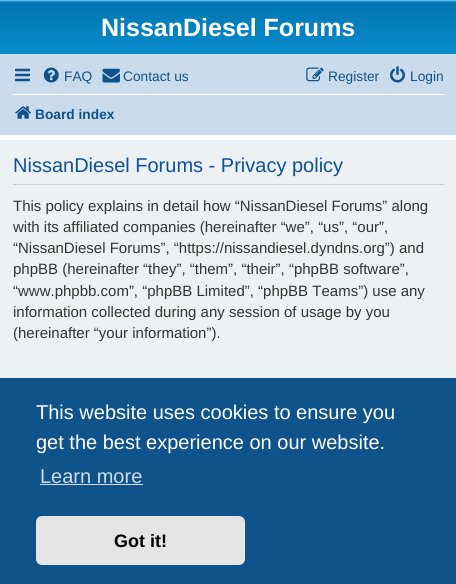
import math
import cairocffi as cairo

surface = cairo.ImageSurface(cairo.FORMAT_RGB24, 456, 584)
ctx = cairo.Context(surface)
options = cairo.FontOptions()
options.set_hint_metrics(cairo.HINT_METRICS_OFF)
options.set_hint_style(cairo.HINT_STYLE_NONE)
ctx.set_font_options(options)
ctx.set_miter_limit(4)


def rgb(r, g, b):
    ctx.set_source_rgb(r / 255, g / 255, b / 255)


def face(family, size, italic, bold):
    ctx.select_font_face(family, cairo.FONT_SLANT_ITALIC if italic else cairo.FONT_SLANT_NORMAL, cairo.FONT_WEIGHT_BOLD if bold else cairo.FONT_WEIGHT_NORMAL)
    ctx.set_font_size(size)


def label(x, y, s):
    ctx.move_to(x, y)
    ctx.show_text(s)


def rect(x, y, w, h):
    ctx.rectangle(x, y, w, h)
    ctx.fill()


def rrect(x, y, w, h, r):
    ctx.new_sub_path()
    for i, (u, v) in enumerate([(x + w - r, y + h - r), (x + r, y + h - r), (x + r, y + r), (x + w - r, y + r)]):
        ctx.arc(u, v, r, i * math.pi / 2, (i + 1) * math.pi / 2)
    ctx.close_path()


def image(path, x, y, w, h):
    ctx.save()
    ctx.set_source_surface(cairo.ImageSurface.create_from_png(path), x, y)
    ctx.rectangle(x, y, w, h)
    ctx.fill()
    ctx.restore()


rgb(255, 255, 255)
ctx.paint()
gradient = cairo.LinearGradient(228, 0, 228, 115)
gradient.add_color_stop_rgba(0, 0.416, 0.808, 1, 1)
gradient.add_color_stop_rgba(0.02, 0, 0.463, 0.694, 1)
gradient.add_color_stop_rgba(1, 0.071, 0.639, 0.922, 1)
ctx.set_source(gradient)
rect(0, 0, 456, 54)
face('Liberation Sans', 25, 0, 1)
rgb(255, 255, 255)
label(101, 36, 'NissanDiesel Forums')
rgb(202, 220, 235)
rect(0, 54, 456, 81)
image('image0.png', 15, 68, 15, 14)
image('image1.png', 43, 67, 16, 16)
face('Liberation Sans', 13.75, 0, 0)
rgb(16, 82, 137)
label(64, 81, 'FAQ')
image('image2.png', 102, 68, 18, 15)
label(123, 81, 'Contact us')
image('image3.png', 306, 67, 18, 15)
label(328, 81, 'Register')
image('image4.png', 390, 66, 15, 17)
label(410, 81, 'Login')
rgb(255, 255, 255)
rect(13, 94, 431, 1)
image('image5.png', 15, 106, 16, 13)
face('Liberation Sans', 13.75, 0, 1)
rgb(16, 82, 137)
label(35, 119, 'Board index')
rgb(236, 241, 243)
rect(0, 140, 456, 238)
rgb(204, 204, 204)
rect(13, 184, 431, 1)
face('Liberation Sans', 20, 0, 0)
rgb(17, 80, 152)
label(13, 172, 'NissanDiesel Forums - Privacy policy')
face('Liberation Sans', 15, 0, 0)
rgb(51, 51, 51)
label(13, 211, 'This policy explains in detail how “NissanDiesel Forums” along')
label(13, 232, 'with its affiliated companies (hereinafter “we”, “us”, “our”,')
label(13, 253, '“NissanDiesel Forums”, “https://nissandiesel.dyndns.org”) and')
label(13, 274, 'phpBB (hereinafter “they”, “them”, “their”, “phpBB software”,')
label(13, 296, '“www.phpbb.com”, “phpBB Limited”, “phpBB Teams”) use any')
label(13, 317, 'information collected during any session of usage by you')
label(13, 338, '(hereinafter “your information”).')
rgb(15, 83, 138)
rect(0, 378, 456, 206)
face('Liberation Sans', 20, 0, 0)
rgb(255, 255, 255)
label(36, 419, 'This website uses cookies to ensure you')
label(36, 449, 'get the best experience on our website.')
rgb(207, 221, 232)
label(40, 483, 'Learn more')
rect(40, 484, 103, 1)
rgb(229, 229, 229)
rrect(36, 516, 209, 49, 6)
ctx.fill()
face('Liberation Sans', 18, 0, 1)
rgb(0, 0, 0)
label(114, 547, 'Got it!')
surface.write_to_png('render.png')
